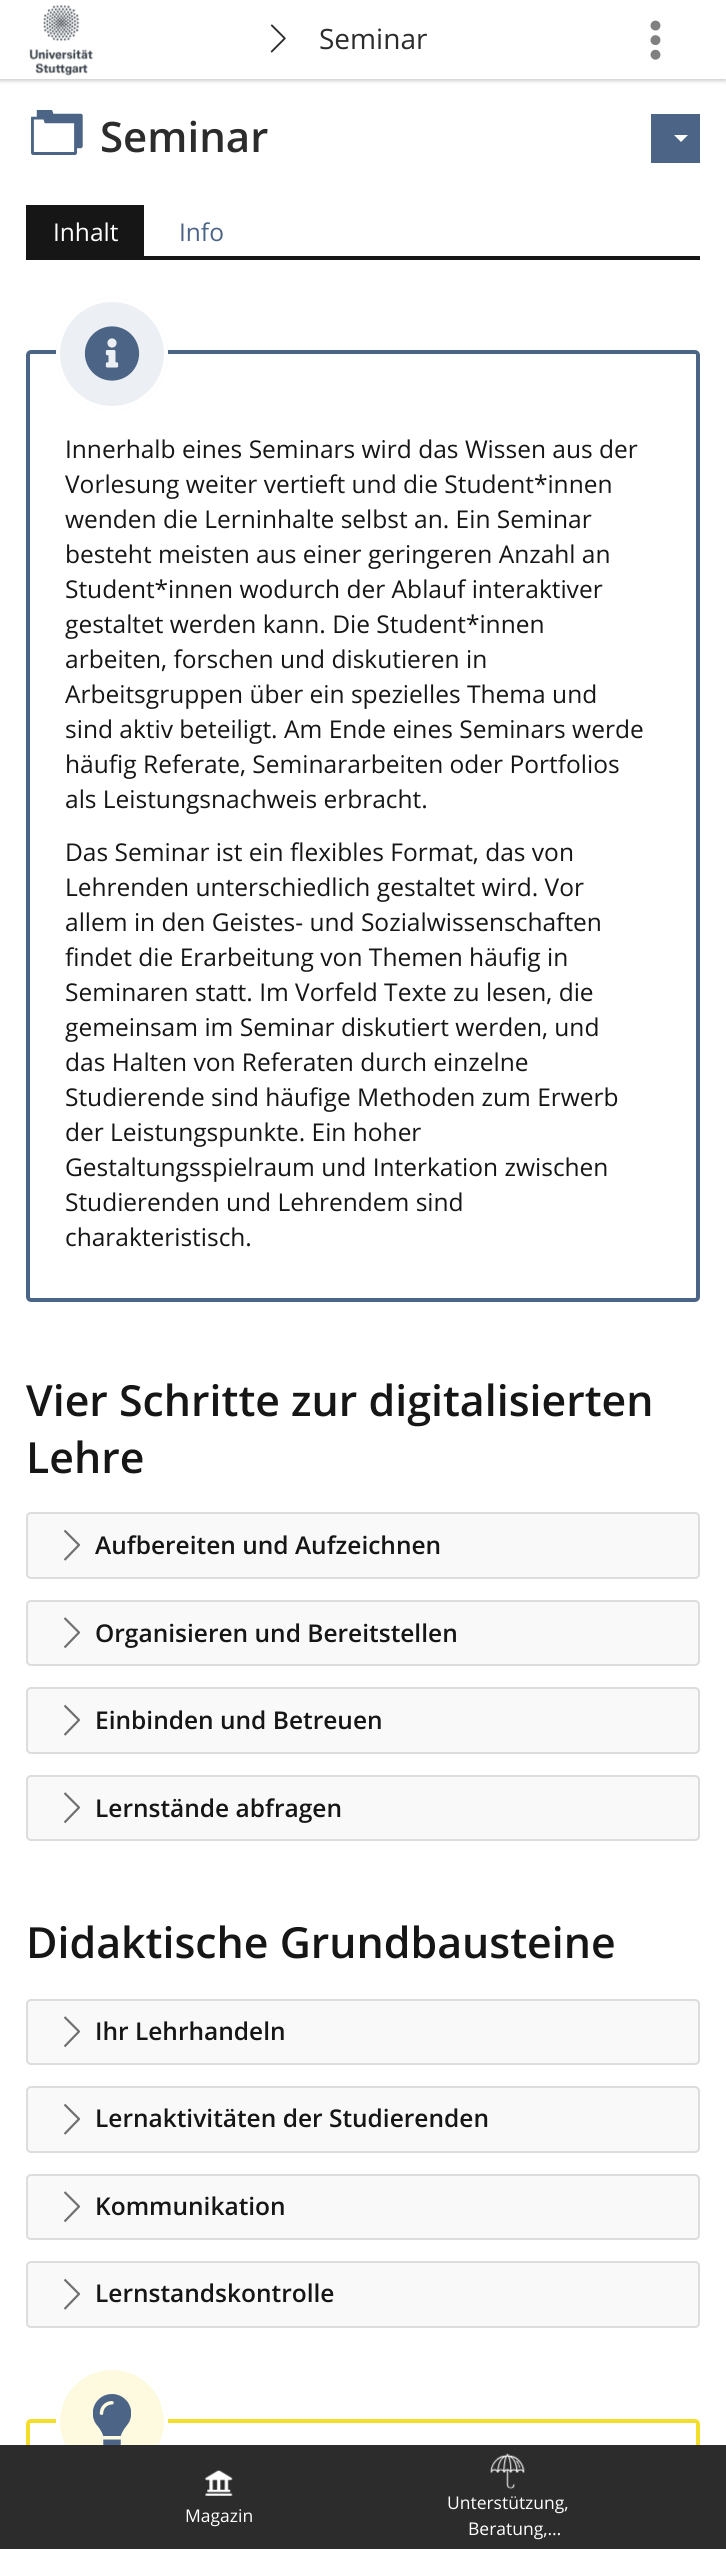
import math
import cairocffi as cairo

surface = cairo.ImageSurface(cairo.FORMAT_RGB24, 726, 2549)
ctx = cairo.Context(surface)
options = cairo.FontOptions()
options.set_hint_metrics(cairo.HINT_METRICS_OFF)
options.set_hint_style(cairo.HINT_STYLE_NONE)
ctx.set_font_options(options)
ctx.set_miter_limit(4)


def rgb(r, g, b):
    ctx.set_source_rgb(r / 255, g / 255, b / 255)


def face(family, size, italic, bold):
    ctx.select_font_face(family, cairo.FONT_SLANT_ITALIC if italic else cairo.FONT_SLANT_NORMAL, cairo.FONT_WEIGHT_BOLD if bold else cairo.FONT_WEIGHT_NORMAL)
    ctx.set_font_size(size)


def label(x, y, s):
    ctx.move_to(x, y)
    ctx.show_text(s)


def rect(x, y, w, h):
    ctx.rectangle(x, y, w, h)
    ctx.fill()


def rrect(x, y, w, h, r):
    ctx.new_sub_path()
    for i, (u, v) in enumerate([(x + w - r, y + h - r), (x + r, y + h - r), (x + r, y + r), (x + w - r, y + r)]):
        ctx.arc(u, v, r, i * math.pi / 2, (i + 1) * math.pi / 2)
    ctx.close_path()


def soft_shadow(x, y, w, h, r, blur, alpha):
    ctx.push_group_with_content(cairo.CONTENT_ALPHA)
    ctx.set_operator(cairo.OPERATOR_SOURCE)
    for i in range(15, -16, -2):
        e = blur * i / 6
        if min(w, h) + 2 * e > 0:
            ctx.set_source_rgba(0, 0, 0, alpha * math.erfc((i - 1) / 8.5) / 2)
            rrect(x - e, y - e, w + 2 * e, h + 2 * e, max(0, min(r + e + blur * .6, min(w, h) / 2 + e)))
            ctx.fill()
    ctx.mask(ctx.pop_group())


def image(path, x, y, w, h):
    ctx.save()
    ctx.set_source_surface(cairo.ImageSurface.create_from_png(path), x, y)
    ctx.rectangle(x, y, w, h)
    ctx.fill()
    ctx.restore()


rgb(255, 255, 255)
ctx.paint()
rgb(0, 0, 0)
soft_shadow(0, 2, 726, 79, 0, 2, 0.1)
soft_shadow(0, 2, 726, 79, 0, 2, 0.1)
rgb(255, 255, 255)
rect(0, 0, 726, 79)
image('image0.png', 29, 5, 65, 71)
image('image1.png', 270, 24, 16, 29)
face('Open Sans', 28, 0, 0)
rgb(44, 44, 44)
label(319, 49, 'Seminar')
image('image2.png', 650, 20, 11, 40)
image('image3.png', 31, 110, 52, 45)
face('Open Sans SemiBold', 42, 0, 0)
label(100, 152, 'Seminar')
rgb(76, 101, 134)
rect(651, 114, 49, 49)
rgb(255, 255, 255)
ctx.new_path()
ctx.move_to(674, 135)
ctx.line_to(688, 135)
ctx.line_to(681, 142)
ctx.close_path()
ctx.fill()
rgb(22, 22, 22)
rect(26, 256, 674, 4)
rect(26, 205, 118, 51)
face('Open Sans', 24.5, 0, 0)
rgb(255, 255, 255)
label(53, 241, 'Inhalt')
rgb(76, 101, 134)
label(179, 241, 'Info')
rrect(28, 352, 670, 948, 3)
ctx.set_line_width(4)
ctx.stroke()
rgb(236, 239, 244)
ctx.arc(112, 354, 56, 0, 2 * math.pi)
ctx.fill()
image('image4.png', 84, 326, 56, 55)
ctx.arc(112, 354, 54, 0, 2 * math.pi)
rgb(255, 255, 255)
ctx.stroke()
rgb(22, 22, 22)
label(65, 458, 'Innerhalb eines Seminars wird das Wissen aus der')
label(65, 493, 'Vorlesung weiter vertieft und die Student*innen')
label(65, 528, 'wenden die Lerninhalte selbst an. Ein Seminar')
label(65, 563, 'besteht meisten aus einer geringeren Anzahl an')
label(65, 598, 'Student*innen wodurch der Ablauf interaktiver')
label(65, 633, 'gestaltet werden kann. Die Student*innen')
label(65, 668, 'arbeiten, forschen und diskutieren in')
label(65, 703, 'Arbeitsgruppen über ein spezielles Thema und')
label(65, 738, 'sind aktiv beteiligt. Am Ende eines Seminars werde')
label(65, 773, 'häufig Referate, Seminararbeiten oder Portfolios')
label(65, 808, 'als Leistungsnachweis erbracht.')
label(65, 861, 'Das Seminar ist ein flexibles Format, das von')
label(65, 896, 'Lehrenden unterschiedlich gestaltet wird. Vor')
label(65, 931, 'allem in den Geistes- und Sozialwissenschaften')
label(65, 966, 'findet die Erarbeitung von Themen häufig in')
label(65, 1001, 'Seminaren statt. Im Vorfeld Texte zu lesen, die')
label(65, 1036, 'gemeinsam im Seminar diskutiert werden, und')
label(65, 1071, 'das Halten von Referaten durch einzelne')
label(65, 1106, 'Studierende sind häufige Methoden zum Erwerb')
label(65, 1141, 'der Leistungspunkte. Ein hoher')
label(65, 1176, 'Gestaltungsspielraum und Interkation zwischen')
label(65, 1211, 'Studierenden und Lehrendem sind')
label(65, 1246, 'charakteristisch.')
face('Open Sans SemiBold', 42.9, 0, 0)
label(26, 1416, 'Vier Schritte zur digitalisierten')
label(26, 1473, 'Lehre')
rgb(249, 249, 249)
rrect(26, 1512, 674, 67, 5)
ctx.fill()
ctx.new_path()
ctx.move_to(64.5, 1560)
ctx.line_to(79, 1545)
ctx.line_to(64.5, 1530.5)
rgb(112, 112, 112)
ctx.set_line_width(2.2)
ctx.set_line_join(cairo.LINE_JOIN_ROUND)
ctx.stroke()
rrect(27, 1513, 672, 65, 4)
rgb(221, 221, 221)
ctx.set_line_width(2)
ctx.set_line_join(cairo.LINE_JOIN_MITER)
ctx.stroke()
face('Open Sans SemiBold', 24.5, 0, 0)
rgb(22, 22, 22)
label(95, 1554, 'Aufbereiten und Aufzeichnen')
rgb(249, 249, 249)
rrect(26, 1600, 674, 66, 5)
ctx.fill()
ctx.new_path()
ctx.move_to(64.5, 1647.5)
ctx.line_to(79, 1632.5)
ctx.line_to(64.5, 1618)
rgb(112, 112, 112)
ctx.set_line_width(2.2)
ctx.set_line_join(cairo.LINE_JOIN_ROUND)
ctx.stroke()
rrect(27, 1601, 672, 64, 4)
rgb(221, 221, 221)
ctx.set_line_width(2)
ctx.set_line_join(cairo.LINE_JOIN_MITER)
ctx.stroke()
rgb(22, 22, 22)
label(95, 1642, 'Organisieren und Bereitstellen')
rgb(249, 249, 249)
rrect(26, 1687, 674, 67, 5)
ctx.fill()
ctx.new_path()
ctx.move_to(64.5, 1735)
ctx.line_to(79, 1720)
ctx.line_to(64.5, 1705.5)
rgb(112, 112, 112)
ctx.set_line_width(2.2)
ctx.set_line_join(cairo.LINE_JOIN_ROUND)
ctx.stroke()
rrect(27, 1688, 672, 65, 4)
rgb(221, 221, 221)
ctx.set_line_width(2)
ctx.set_line_join(cairo.LINE_JOIN_MITER)
ctx.stroke()
rgb(22, 22, 22)
label(95, 1729, 'Einbinden und Betreuen')
rgb(249, 249, 249)
rrect(26, 1775, 674, 66, 5)
ctx.fill()
ctx.new_path()
ctx.move_to(64.5, 1822.5)
ctx.line_to(79, 1807.5)
ctx.line_to(64.5, 1793)
rgb(112, 112, 112)
ctx.set_line_width(2.2)
ctx.set_line_join(cairo.LINE_JOIN_ROUND)
ctx.stroke()
rrect(27, 1776, 672, 64, 4)
rgb(221, 221, 221)
ctx.set_line_width(2)
ctx.set_line_join(cairo.LINE_JOIN_MITER)
ctx.stroke()
rgb(22, 22, 22)
label(95, 1817, 'Lernstände abfragen')
face('Open Sans SemiBold', 42.9, 0, 0)
label(26, 1958, 'Didaktische Grundbausteine')
rgb(249, 249, 249)
rrect(26, 1999, 674, 66, 5)
ctx.fill()
ctx.new_path()
ctx.move_to(64.5, 2046.5)
ctx.line_to(79, 2031.5)
ctx.line_to(64.5, 2017)
rgb(112, 112, 112)
ctx.set_line_width(2.2)
ctx.set_line_join(cairo.LINE_JOIN_ROUND)
ctx.stroke()
rrect(27, 2000, 672, 64, 4)
rgb(221, 221, 221)
ctx.set_line_width(2)
ctx.set_line_join(cairo.LINE_JOIN_MITER)
ctx.stroke()
face('Open Sans SemiBold', 24.5, 0, 0)
rgb(22, 22, 22)
label(95, 2040, 'Ihr Lehrhandeln')
rgb(249, 249, 249)
rrect(26, 2086, 674, 67, 5)
ctx.fill()
ctx.new_path()
ctx.move_to(64.5, 2134)
ctx.line_to(79, 2119)
ctx.line_to(64.5, 2104.5)
rgb(112, 112, 112)
ctx.set_line_width(2.2)
ctx.set_line_join(cairo.LINE_JOIN_ROUND)
ctx.stroke()
rrect(27, 2087, 672, 65, 4)
rgb(221, 221, 221)
ctx.set_line_width(2)
ctx.set_line_join(cairo.LINE_JOIN_MITER)
ctx.stroke()
rgb(22, 22, 22)
label(95, 2127, 'Lernaktivitäten der Studierenden')
rgb(249, 249, 249)
rrect(26, 2174, 674, 66, 5)
ctx.fill()
ctx.new_path()
ctx.move_to(64.5, 2221.5)
ctx.line_to(79, 2206.5)
ctx.line_to(64.5, 2192)
rgb(112, 112, 112)
ctx.set_line_width(2.2)
ctx.set_line_join(cairo.LINE_JOIN_ROUND)
ctx.stroke()
rrect(27, 2175, 672, 64, 4)
rgb(221, 221, 221)
ctx.set_line_width(2)
ctx.set_line_join(cairo.LINE_JOIN_MITER)
ctx.stroke()
rgb(22, 22, 22)
label(95, 2215, 'Kommunikation')
rgb(249, 249, 249)
rrect(26, 2261, 674, 67, 5)
ctx.fill()
ctx.new_path()
ctx.move_to(64.5, 2309)
ctx.line_to(79, 2294)
ctx.line_to(64.5, 2279.5)
rgb(112, 112, 112)
ctx.set_line_width(2.2)
ctx.set_line_join(cairo.LINE_JOIN_ROUND)
ctx.stroke()
rrect(27, 2262, 672, 65, 4)
rgb(221, 221, 221)
ctx.set_line_width(2)
ctx.set_line_join(cairo.LINE_JOIN_MITER)
ctx.stroke()
rgb(22, 22, 22)
label(95, 2302, 'Lernstandskontrolle')
rrect(28, 2421, 670, 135, 3)
rgb(243, 222, 44)
ctx.set_line_width(4)
ctx.stroke()
rgb(253, 250, 223)
ctx.arc(112, 2422, 56, 0, 2 * math.pi)
ctx.fill()
image('image5.png', 93, 2394, 38, 51)
ctx.arc(112, 2422, 54, 0, 2 * math.pi)
rgb(255, 255, 255)
ctx.stroke()
rgb(44, 44, 44)
rect(0, 2445, 726, 104)
image('image6.png', 205, 2470, 28, 26)
face('Open Sans', 17.5, 0, 0)
rgb(255, 255, 255)
label(185, 2522, 'Magazin')
image('image7.png', 490, 2453, 35, 36)
label(447, 2509, 'Unterstützung,')
label(468, 2535, 'Beratung,…')
surface.write_to_png('render.png')
